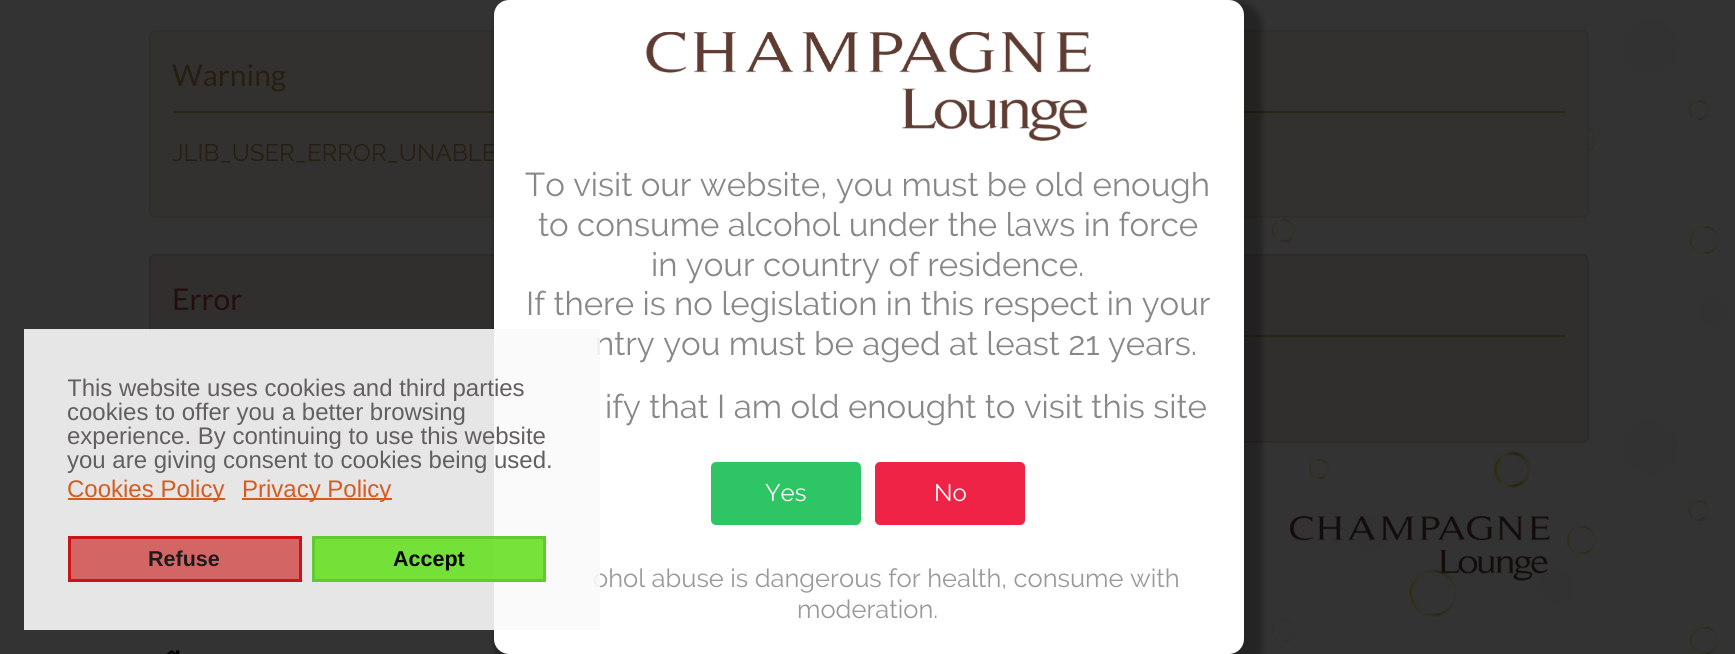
import math
import cairocffi as cairo

surface = cairo.ImageSurface(cairo.FORMAT_RGB24, 1735, 654)
ctx = cairo.Context(surface)
options = cairo.FontOptions()
options.set_hint_metrics(cairo.HINT_METRICS_OFF)
options.set_hint_style(cairo.HINT_STYLE_NONE)
ctx.set_font_options(options)
ctx.set_miter_limit(4)


def rgb(r, g, b):
    ctx.set_source_rgb(r / 255, g / 255, b / 255)


def face(family, size, italic, bold):
    ctx.select_font_face(family, cairo.FONT_SLANT_ITALIC if italic else cairo.FONT_SLANT_NORMAL, cairo.FONT_WEIGHT_BOLD if bold else cairo.FONT_WEIGHT_NORMAL)
    ctx.set_font_size(size)


def label(x, y, s):
    ctx.move_to(x, y)
    ctx.show_text(s)


def rect(x, y, w, h):
    ctx.rectangle(x, y, w, h)
    ctx.fill()


def rrect(x, y, w, h, r):
    ctx.new_sub_path()
    for i, (u, v) in enumerate([(x + w - r, y + h - r), (x + r, y + h - r), (x + r, y + r), (x + w - r, y + r)]):
        ctx.arc(u, v, r, i * math.pi / 2, (i + 1) * math.pi / 2)
    ctx.close_path()


def soft_shadow(x, y, w, h, r, blur, alpha):
    ctx.push_group_with_content(cairo.CONTENT_ALPHA)
    ctx.set_operator(cairo.OPERATOR_SOURCE)
    for i in range(15, -16, -2):
        e = blur * i / 6
        if min(w, h) + 2 * e > 0:
            ctx.set_source_rgba(0, 0, 0, alpha * math.erfc((i - 1) / 8.5) / 2)
            rrect(x - e, y - e, w + 2 * e, h + 2 * e, max(0, min(r + e + blur * .6, min(w, h) / 2 + e)))
            ctx.fill()
    ctx.mask(ctx.pop_group())


def image(path, x, y, w, h):
    ctx.save()
    ctx.set_source_surface(cairo.ImageSurface.create_from_png(path), x, y)
    ctx.rectangle(x, y, w, h)
    ctx.fill()
    ctx.restore()


rgb(51, 51, 51)
ctx.paint()
image('image0.png', 1271, 20, 457, 634)
rgb(50, 49, 47)
rrect(150, 31, 1438, 186, 5)
ctx.fill_preserve()
rgb(48, 46, 42)
ctx.stroke()
rgb(43, 38, 19)
rect(173, 111, 1392, 2)
face('Lato', 30, 0, 0)
rgb(38, 30, 17)
label(172, 86, 'Warning')
face('Raleway', 24, 0, 0)
label(172, 161, 'JLIB_USER_ERROR_UNABLE')
rgb(49, 46, 46)
rrect(150, 255, 1438, 187, 5)
ctx.fill_preserve()
rgb(47, 42, 42)
ctx.stroke()
rgb(43, 38, 19)
rect(173, 335, 1392, 2)
face('Lato', 30, 0, 0)
rgb(37, 15, 14)
label(172, 310, 'Error')
image('image1.png', 1290, 516, 260, 65)
ctx.set_source_rgba(0.2, 0.2, 0.2, 0.73)
rect(1271, 619, 24, 24)
image('image2.png', 166, 650, 14, 4)
rgb(0, 0, 1)
soft_shadow(494, 2, 768, 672, 24, 3, 0.3)
rgb(255, 255, 255)
rrect(495, 1, 748, 652, 14)
ctx.fill_preserve()
ctx.stroke()
image('image3.png', 646, 32, 445, 109)
face('Raleway', 33, 0, 0)
rgb(136, 136, 136)
label(525, 196, 'To visit our website, you must be old enough')
label(538, 236, 'to consume alcohol under the laws in force')
label(651, 276, 'in your country of residence.')
label(526, 315, 'If there is no legislation in this respect in your')
label(595, 355, 'ntry you must be aged at least 21 years.')
label(605, 418, 'ify that I am old enought to visit this site')
rgb(46, 198, 100)
rrect(711, 462, 150, 63, 5)
ctx.fill()
face('Raleway', 24, 0, 0)
rgb(255, 255, 255)
label(765, 501, 'Yes')
rgb(239, 35, 69)
rrect(875, 462, 150, 63, 5)
ctx.fill()
rgb(255, 255, 255)
label(934, 501, 'No')
face('Raleway', 25.5, 0, 0)
rgb(153, 153, 153)
label(593, 587, 'ohol abuse is dangerous for health, consume with')
label(797, 618, 'moderation.')
ctx.set_source_rgba(0.98, 0.98, 0.98, 0.9)
rect(24, 329, 576, 301)
ctx.save()
ctx.rectangle(68, 377, 489, 130)
ctx.clip()
face('Liberation Sans', 24, 0, 0)
rgb(99, 95, 95)
label(67, 396, 'This website uses cookies and third parties')
ctx.restore()
face('Liberation Sans', 24, 0, 0)
rgb(99, 95, 95)
label(67, 420, 'cookies to offer you a better browsing')
label(67, 444, 'experience. By continuing to use this website')
label(67, 468, 'you are giving consent to cookies being used.')
rgb(212, 92, 32)
rect(68, 498, 157, 2)
label(67, 497, 'Cookies Policy')
rect(242, 498, 150, 2)
label(242, 497, 'Privacy Policy')
rgb(212, 101, 101)
ctx.rectangle(69.5, 537.5, 231, 43)
ctx.fill_preserve()
rgb(205, 20, 20)
ctx.set_line_width(3)
ctx.stroke()
face('Liberation Sans', 21.5, 0, 1)
rgb(29, 27, 27)
label(148, 566, 'Refuse')
ctx.set_source_rgba(0.404, 0.878, 0.149, 0.9)
ctx.rectangle(313.5, 537.5, 231, 43)
ctx.fill_preserve()
rgb(97, 202, 45)
ctx.stroke()
rgb(5, 5, 5)
label(393, 566, 'Accept')
surface.write_to_png('render.png')
